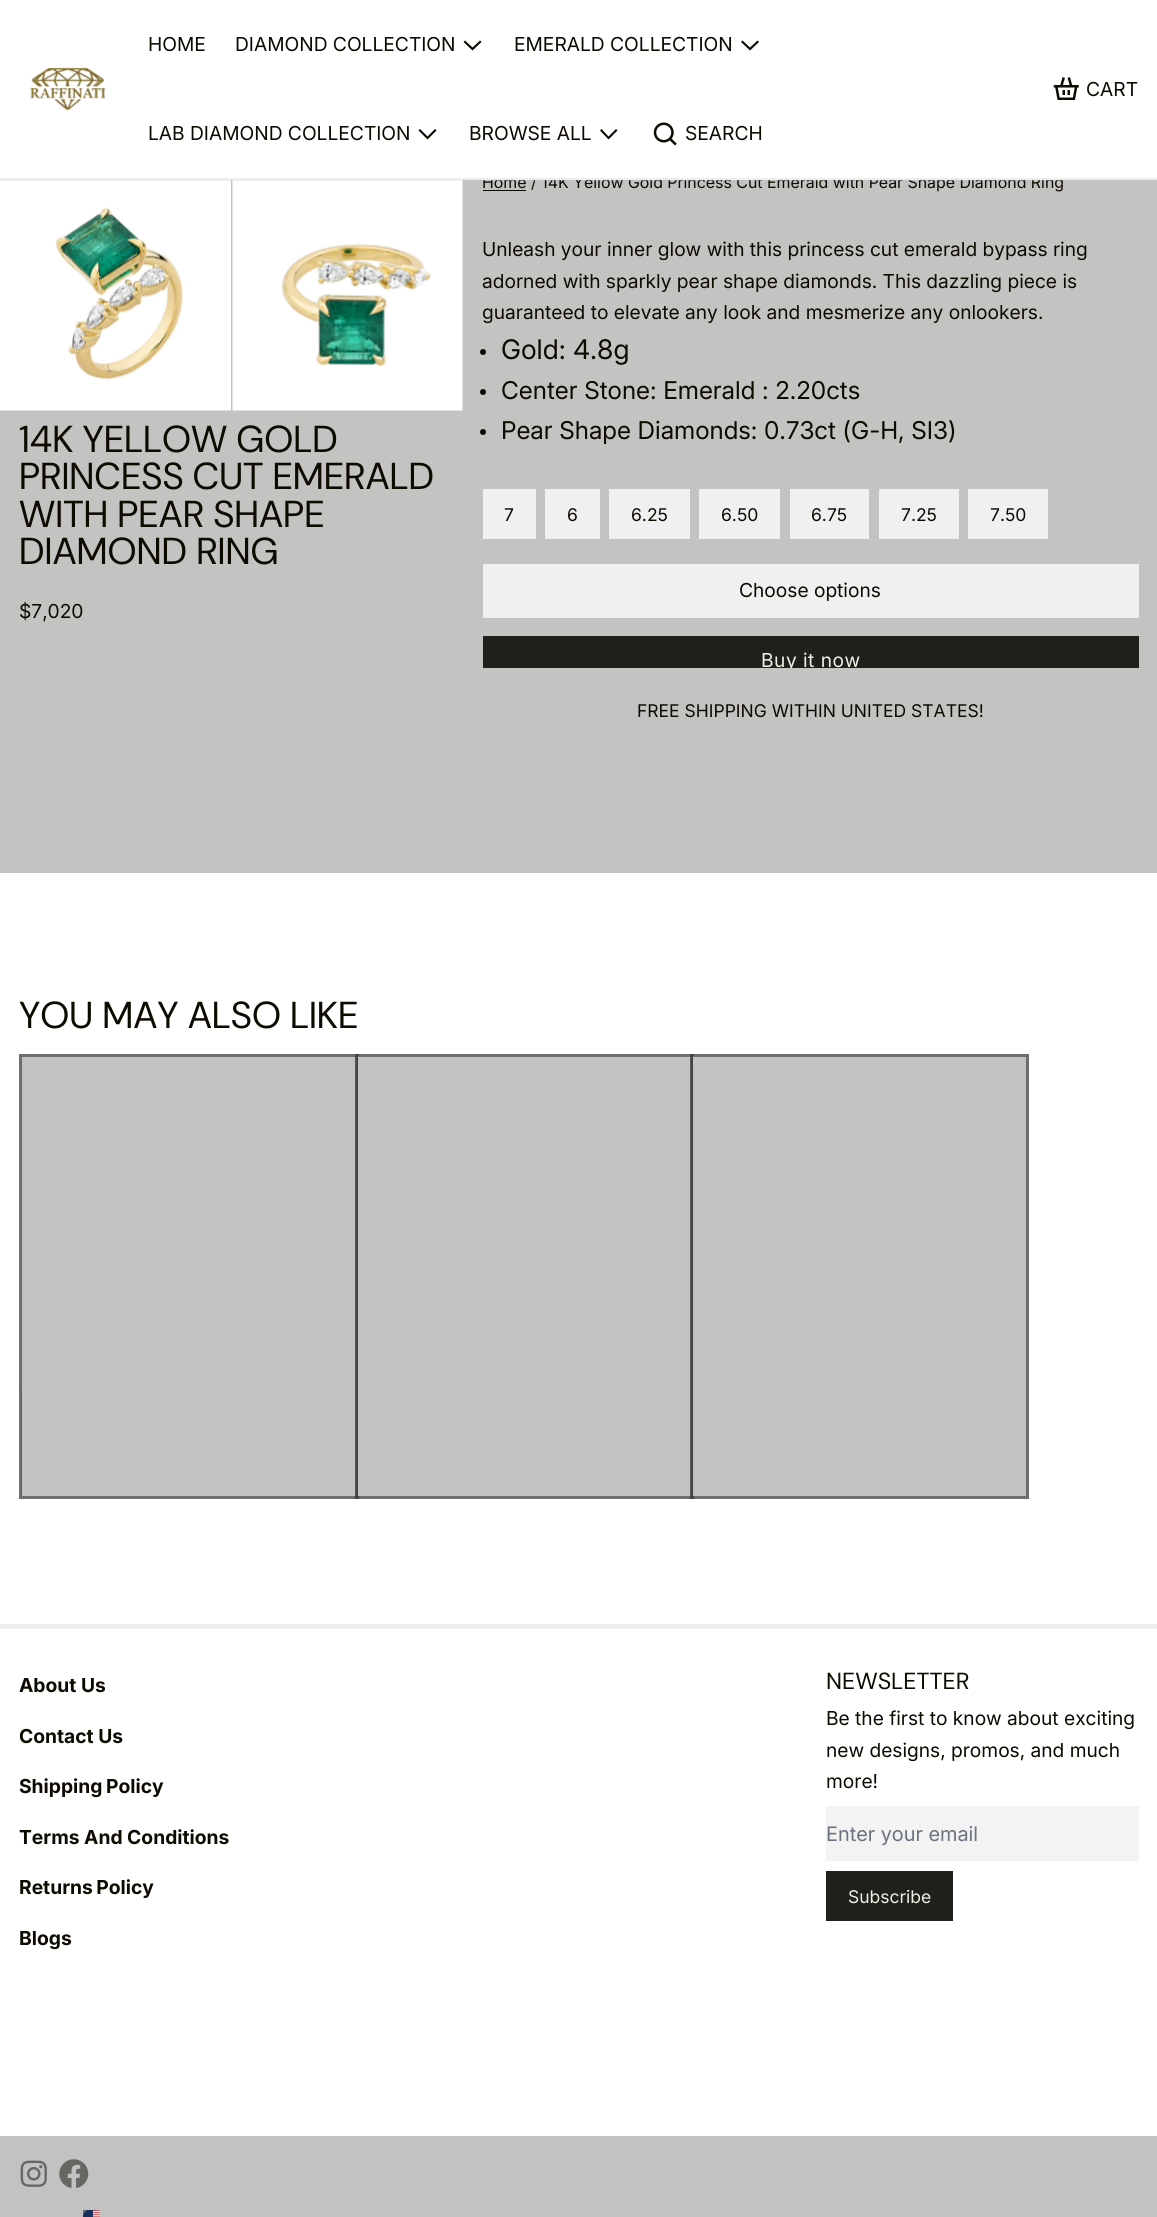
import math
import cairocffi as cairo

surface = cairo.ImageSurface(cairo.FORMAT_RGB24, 1157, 2217)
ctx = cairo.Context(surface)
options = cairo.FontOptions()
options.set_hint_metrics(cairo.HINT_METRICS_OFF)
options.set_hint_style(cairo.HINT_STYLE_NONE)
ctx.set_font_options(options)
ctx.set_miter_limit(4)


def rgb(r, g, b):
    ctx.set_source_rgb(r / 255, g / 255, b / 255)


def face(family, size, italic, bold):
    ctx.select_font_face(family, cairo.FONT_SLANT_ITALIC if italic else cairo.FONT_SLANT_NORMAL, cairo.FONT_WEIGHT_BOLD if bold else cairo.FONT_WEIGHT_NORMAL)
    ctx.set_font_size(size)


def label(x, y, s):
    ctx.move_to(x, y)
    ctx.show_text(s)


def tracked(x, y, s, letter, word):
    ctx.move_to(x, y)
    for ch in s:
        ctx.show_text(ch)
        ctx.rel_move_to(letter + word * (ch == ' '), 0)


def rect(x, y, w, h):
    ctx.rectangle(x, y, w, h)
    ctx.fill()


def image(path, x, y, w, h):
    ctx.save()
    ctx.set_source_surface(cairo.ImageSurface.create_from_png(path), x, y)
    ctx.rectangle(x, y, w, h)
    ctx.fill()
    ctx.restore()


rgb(255, 255, 255)
ctx.paint()
rgb(195, 196, 194)
rect(0, 180, 1157, 693)
rgb(13, 10, 0)
rect(483, 190, 43, 1)
face('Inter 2', 15.9, 0, 0)
label(482, 188, 'Home / 14K Yellow Gold Princess Cut Emerald with Pear Shape Diamond Ring')
rgb(255, 255, 255)
rect(483, 175, 581, 5)
image('image3.png', 0, 180, 231, 231)
image('image4.png', 232, 180, 231, 231)
ctx.set_source_rgba(0.761, 0.761, 0.761, 0.3)
rect(0, 178, 1157, 3)
image('image0.png', 29, 67, 77, 44)
face('Inter', 19.25, 0, 0)
rgb(13, 10, 0)
label(148, 51, 'HOME')
label(235, 51, 'DIAMOND COLLECTION')
ctx.set_fill_rule(cairo.FILL_RULE_EVEN_ODD)
ctx.new_path()
ctx.move_to(465, 40.5)
ctx.line_to(472.5, 47.5)
ctx.line_to(480, 40.5)
ctx.line_to(481.5, 42)
ctx.line_to(472.5, 50.5)
ctx.line_to(463.5, 42)
ctx.close_path()
ctx.fill()
label(514, 51, 'EMERALD COLLECTION')
ctx.new_path()
ctx.move_to(742.5, 40.5)
ctx.line_to(750, 47.5)
ctx.line_to(757.5, 40.5)
ctx.line_to(759, 42)
ctx.line_to(750, 50.5)
ctx.line_to(741, 42)
ctx.close_path()
ctx.fill()
label(148, 140, 'LAB DIAMOND COLLECTION')
ctx.new_path()
ctx.move_to(420, 129)
ctx.line_to(427.5, 136.5)
ctx.line_to(435, 129)
ctx.line_to(436.5, 130.5)
ctx.line_to(427.5, 139.5)
ctx.line_to(418.5, 130.5)
ctx.close_path()
ctx.fill()
label(469, 140, 'BROWSE ALL')
ctx.new_path()
ctx.move_to(601.5, 129)
ctx.line_to(608.5, 136.5)
ctx.line_to(616, 129)
ctx.line_to(617.5, 130.5)
ctx.line_to(608.5, 139.5)
ctx.line_to(600, 130.5)
ctx.close_path()
ctx.fill()
image('image1.png', 653, 122, 24, 24)
label(685, 140, 'SEARCH')
image('image2.png', 1053, 77, 26, 23)
label(1086, 96, 'CART')
face('DM Sans', 37.5, 0, 0)
label(19, 452, '14K YELLOW GOLD')
label(19, 489, 'PRINCESS CUT EMERALD')
label(19, 527, 'WITH PEAR SHAPE')
label(19, 564, 'DIAMOND RING')
face('Inter', 19.25, 0, 0)
label(19, 618, '$7,020')
label(482, 256, 'Unleash your inner glow with this princess cut emerald bypass ring')
label(482, 288, 'adorned with sparkly pear shape diamonds. This dazzling piece is')
label(482, 319, 'guaranteed to elevate any look and mesmerize any onlookers.')
ctx.new_path()
ctx.arc(483, 352, 3, 0, 2 * math.pi)
ctx.fill()
face('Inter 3', 27, 0, 0)
label(501, 359, 'Gold: 4.8g')
ctx.new_path()
ctx.arc(483, 392, 3, 0, 2 * math.pi)
ctx.fill()
face('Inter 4', 24.5, 0, 0)
label(501, 399, 'Center Stone: Emerald : 2.20cts')
ctx.new_path()
ctx.arc(483, 432, 3, 0, 2 * math.pi)
ctx.fill()
label(501, 439, 'Pear Shape Diamonds: 0.73ct (G-H, SI3)')
rgb(240, 240, 240)
rect(483, 489, 53, 50)
face('Inter 2', 17.5, 0, 0)
rgb(13, 10, 0)
label(504, 521, '7')
rgb(240, 240, 240)
rect(545, 489, 55, 50)
rgb(13, 10, 0)
label(567, 521, '6')
rgb(240, 240, 240)
rect(609, 489, 81, 50)
rgb(13, 10, 0)
label(631, 521, '6.25')
rgb(240, 240, 240)
rect(699, 489, 81, 50)
rgb(13, 10, 0)
label(721, 521, '6.50')
rgb(240, 240, 240)
rect(790, 489, 79, 50)
rgb(13, 10, 0)
label(811, 521, '6.75')
rgb(240, 240, 240)
rect(879, 489, 80, 50)
rgb(13, 10, 0)
label(901, 521, '7.25')
rgb(240, 240, 240)
rect(968, 489, 80, 50)
rgb(13, 10, 0)
label(990, 521, '7.50')
rgb(240, 240, 240)
rect(483, 564, 656, 54)
face('Inter', 19.25, 0, 0)
rgb(13, 10, 0)
label(739, 597, 'Choose options')
rgb(30, 32, 28)
rect(483, 636, 656, 32)
ctx.save()
ctx.set_fill_rule(cairo.FILL_RULE_WINDING)
ctx.rectangle(483, 636, 656, 32)
ctx.clip()
rgb(242, 238, 226)
tracked(761, 667, 'Buy it now', 0.5, 0)
ctx.restore()
face('Inter 2', 17.5, 0, 0)
rgb(13, 10, 0)
label(637, 717, 'FREE SHIPPING WITHIN UNITED STATES!')
rgb(237, 237, 237)
rect(0, 1624, 1157, 5)
face('DM Sans', 37.5, 0, 0)
rgb(13, 10, 0)
label(19, 1028, 'YOU MAY ALSO LIKE')
rgb(195, 196, 194)
rect(21, 1056, 335, 440)
ctx.rectangle(20.5, 1055.5, 337, 442)
ctx.set_source_rgba(0.2, 0.2, 0.2, 0.7)
ctx.set_line_width(3)
ctx.stroke()
ctx.set_source_rgba(0.761, 0.761, 0.761, 0.2)
rect(21, 1056, 335, 334)
rgb(195, 196, 194)
rect(358, 1056, 333, 440)
ctx.rectangle(356.5, 1055.5, 336, 442)
ctx.set_source_rgba(0.2, 0.2, 0.2, 0.7)
ctx.stroke()
ctx.set_source_rgba(0.761, 0.761, 0.761, 0.2)
rect(358, 1056, 333, 1)
rgb(195, 196, 194)
rect(693, 1056, 333, 440)
ctx.rectangle(691.5, 1055.5, 336, 442)
ctx.set_source_rgba(0.2, 0.2, 0.2, 0.7)
ctx.stroke()
ctx.set_source_rgba(0.761, 0.761, 0.761, 0.2)
rect(693, 1056, 333, 1)
face('Inter', 19.25, 0, 1)
rgb(13, 10, 0)
label(19, 1692, 'About Us')
label(19, 1743, 'Contact Us')
tracked(19, 1793, 'Shipping Policy', 0, -1)
label(19, 1844, 'Terms And Conditions')
tracked(19, 1894, 'Returns Policy', 0, -1)
label(19, 1945, 'Blogs')
face('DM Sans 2', 23.25, 0, 0)
label(826, 1689, 'NEWSLETTER')
face('Inter', 19.25, 0, 0)
label(826, 1725, 'Be the first to know about exciting')
label(826, 1757, 'new designs, promos, and much')
label(826, 1788, 'more!')
rgb(243, 243, 243)
rect(826, 1806, 313, 55)
face('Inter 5', 20, 0, 0)
rgb(107, 114, 128)
label(826, 1841, 'Enter your email')
rgb(30, 32, 28)
rect(826, 1871, 127, 50)
face('Inter 2', 17.5, 0, 0)
rgb(242, 238, 226)
label(848, 1903, 'Subscribe')
rgb(194, 194, 194)
rect(0, 2136, 1157, 81)
image('image5.png', 20, 2160, 27, 27)
image('image6.png', 59, 2159, 30, 29)
image('image7.png', 83, 2210, 17, 7)
ctx.arc(91.5, 2217.5, 10, 0, 2 * math.pi)
ctx.set_source_rgba(0.761, 0.761, 0.761, 0.4)
ctx.stroke()
surface.write_to_png('render.png')
